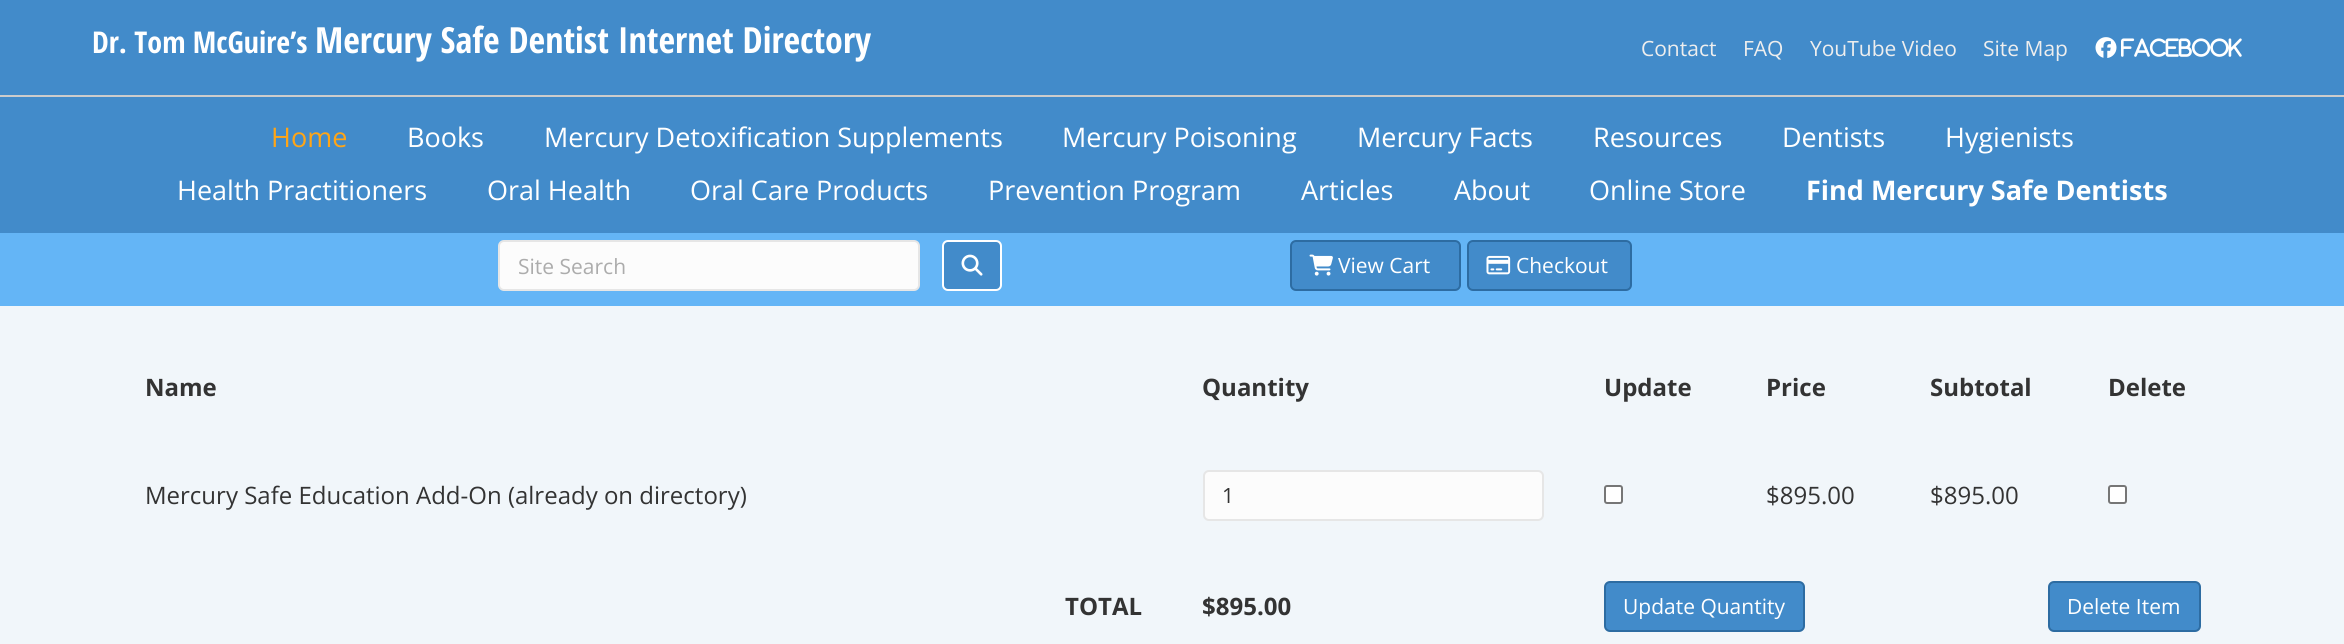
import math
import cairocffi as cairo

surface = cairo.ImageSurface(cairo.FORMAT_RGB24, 2344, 644)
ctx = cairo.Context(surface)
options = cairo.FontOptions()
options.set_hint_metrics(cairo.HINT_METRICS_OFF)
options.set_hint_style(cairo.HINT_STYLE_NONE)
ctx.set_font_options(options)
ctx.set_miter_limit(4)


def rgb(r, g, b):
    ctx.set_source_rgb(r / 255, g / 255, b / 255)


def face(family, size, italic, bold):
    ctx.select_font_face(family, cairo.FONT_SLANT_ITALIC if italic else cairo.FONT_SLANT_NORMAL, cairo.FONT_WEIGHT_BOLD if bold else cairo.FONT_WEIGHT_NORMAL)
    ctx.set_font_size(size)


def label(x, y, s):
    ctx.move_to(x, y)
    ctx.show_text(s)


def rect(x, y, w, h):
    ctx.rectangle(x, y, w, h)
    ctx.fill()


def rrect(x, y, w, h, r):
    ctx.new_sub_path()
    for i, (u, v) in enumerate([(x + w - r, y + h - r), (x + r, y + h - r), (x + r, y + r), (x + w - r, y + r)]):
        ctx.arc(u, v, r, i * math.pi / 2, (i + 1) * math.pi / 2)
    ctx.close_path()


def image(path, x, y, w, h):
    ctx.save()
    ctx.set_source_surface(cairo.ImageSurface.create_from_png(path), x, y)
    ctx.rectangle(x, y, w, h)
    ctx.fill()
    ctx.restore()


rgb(66, 139, 202)
ctx.paint()
rgb(204, 204, 204)
rect(0, 95, 2344, 2)
face('Open Sans Condensed', 30, 0, 1)
rgb(255, 255, 255)
label(92, 53, 'Dr. Tom McGuire’s')
face('Open Sans Condensed', 36, 0, 1)
label(315, 53, 'Mercury Safe Dentist Internet Directory')
face('Open Sans', 21, 0, 0)
rgb(238, 238, 238)
label(1641, 56, 'Contact')
label(1743, 56, 'FAQ')
label(1810, 56, 'YouTube Video')
label(1983, 56, 'Site Map')
image('image0.png', 2095, 37, 22, 21)
image('image1.png', 2121, 38, 121, 19)
face('Open Sans', 27, 0, 0)
rgb(255, 165, 22)
label(271, 147, 'Home')
rgb(255, 255, 255)
label(407, 147, 'Books')
label(544, 147, 'Mercury Detoxification Supplements')
label(1062, 147, 'Mercury Poisoning')
label(1357, 147, 'Mercury Facts')
label(1593, 147, 'Resources')
label(1782, 147, 'Dentists')
label(1945, 147, 'Hygienists')
label(177, 200, 'Health Practitioners')
label(487, 200, 'Oral Health')
label(690, 200, 'Oral Care Products')
label(988, 200, 'Prevention Program')
label(1301, 200, 'Articles')
label(1454, 200, 'About')
label(1589, 200, 'Online Store')
face('Open Sans', 27, 0, 1)
label(1806, 200, 'Find Mercury Safe Dentists')
rgb(100, 181, 246)
rect(0, 233, 2344, 73)
rgb(252, 252, 252)
rrect(499, 241, 420, 49, 5)
ctx.fill_preserve()
rgb(230, 230, 230)
ctx.stroke()
face('Open Sans', 21, 0, 0)
rgb(172, 172, 172)
label(518, 274, 'Site Search')
rgb(66, 139, 202)
rrect(943, 241, 58, 49, 5)
ctx.fill_preserve()
rgb(255, 255, 255)
ctx.stroke()
image('image2.png', 961, 254, 22, 22)
rgb(66, 139, 202)
rrect(1291, 241, 169, 49, 5)
ctx.fill_preserve()
rgb(45, 108, 162)
ctx.stroke()
image('image3.png', 1309, 254, 24, 22)
rgb(255, 255, 255)
label(1338, 273, 'View Cart')
rgb(66, 139, 202)
rrect(1468, 241, 163, 49, 5)
ctx.fill_preserve()
rgb(45, 108, 162)
ctx.stroke()
image('image4.png', 1486, 255, 25, 20)
rgb(255, 255, 255)
label(1516, 273, 'Checkout')
rgb(241, 246, 250)
rect(0, 306, 2344, 338)
face('Open Sans', 24, 0, 1)
rgb(51, 51, 51)
label(145, 396, 'Name')
label(1202, 396, 'Quantity')
label(1604, 396, 'Update')
label(1766, 396, 'Price')
label(1930, 396, 'Subtotal')
label(2108, 396, 'Delete')
face('Open Sans', 24, 0, 0)
label(145, 504, 'Mercury Safe Education Add-On (already on directory)')
rgb(252, 252, 252)
rrect(1204, 471, 339, 49, 5)
ctx.fill_preserve()
rgb(230, 230, 230)
ctx.stroke()
face('Open Sans', 21, 0, 0)
rgb(51, 51, 51)
label(1222, 503, '1')
rgb(255, 255, 255)
rrect(1605, 486, 17, 17, 2)
ctx.fill_preserve()
rgb(118, 118, 118)
ctx.stroke()
face('Open Sans', 24, 0, 0)
rgb(51, 51, 51)
label(1766, 504, '$895.00')
label(1930, 504, '$895.00')
rgb(255, 255, 255)
rrect(2109, 486, 17, 17, 2)
ctx.fill_preserve()
rgb(118, 118, 118)
ctx.stroke()
face('Open Sans', 24, 0, 1)
rgb(51, 51, 51)
label(1065, 615, 'TOTAL')
label(1202, 615, '$895.00')
rgb(66, 139, 202)
rrect(1605, 582, 199, 49, 5)
ctx.fill_preserve()
rgb(45, 108, 162)
ctx.stroke()
face('Open Sans', 21, 0, 0)
rgb(255, 255, 255)
label(1623, 614, 'Update Quantity')
rgb(66, 139, 202)
rrect(2049, 582, 151, 49, 5)
ctx.fill_preserve()
rgb(45, 108, 162)
ctx.stroke()
rgb(255, 255, 255)
label(2067, 614, 'Delete Item')
surface.write_to_png('render.png')
